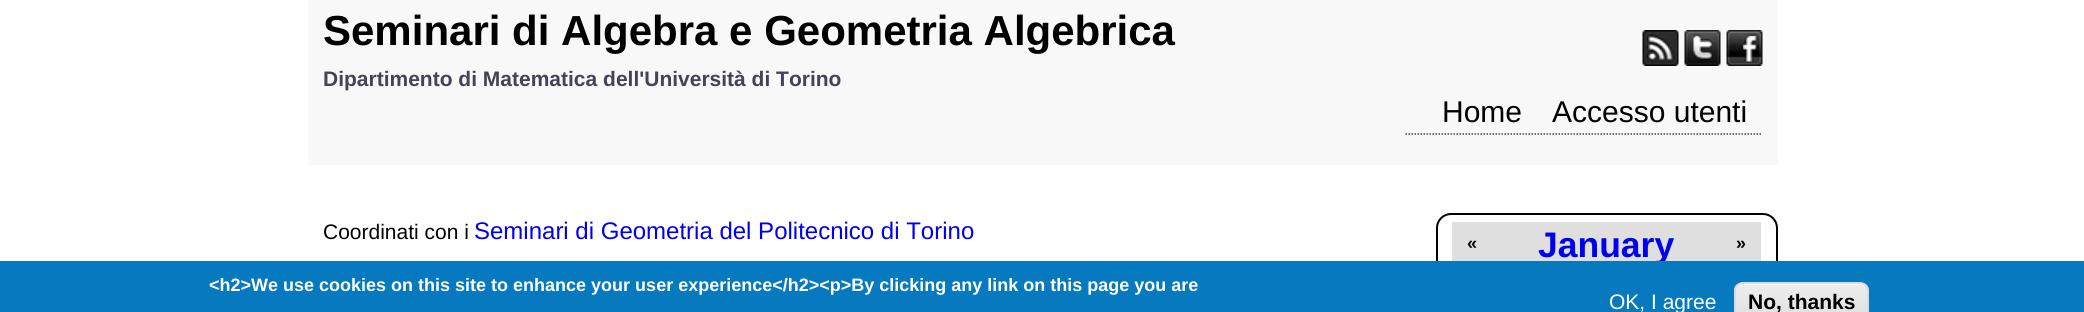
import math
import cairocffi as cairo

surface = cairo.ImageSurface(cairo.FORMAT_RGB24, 2084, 312)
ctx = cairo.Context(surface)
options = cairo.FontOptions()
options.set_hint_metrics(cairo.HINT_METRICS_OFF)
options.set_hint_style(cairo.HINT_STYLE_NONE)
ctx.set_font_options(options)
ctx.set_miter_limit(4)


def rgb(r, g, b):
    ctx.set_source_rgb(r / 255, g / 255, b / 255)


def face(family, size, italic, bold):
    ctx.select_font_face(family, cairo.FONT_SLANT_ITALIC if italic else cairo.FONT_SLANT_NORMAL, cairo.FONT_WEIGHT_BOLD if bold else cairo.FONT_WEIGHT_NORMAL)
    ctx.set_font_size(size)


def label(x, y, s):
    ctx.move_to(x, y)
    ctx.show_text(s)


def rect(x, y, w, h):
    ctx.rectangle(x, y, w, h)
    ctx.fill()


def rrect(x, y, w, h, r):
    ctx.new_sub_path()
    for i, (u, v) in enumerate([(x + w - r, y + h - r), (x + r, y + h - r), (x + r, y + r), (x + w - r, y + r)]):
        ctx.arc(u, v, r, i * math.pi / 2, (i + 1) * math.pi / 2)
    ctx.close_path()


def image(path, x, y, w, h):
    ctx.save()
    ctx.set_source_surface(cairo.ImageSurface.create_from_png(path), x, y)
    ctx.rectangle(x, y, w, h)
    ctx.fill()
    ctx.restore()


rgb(255, 255, 255)
ctx.paint()
rgb(248, 248, 248)
rect(308, 0, 1470, 165)
face('Liberation Sans', 42, 0, 1)
rgb(0, 0, 0)
label(323, 45, 'Seminari di Algebra e Geometria Algebrica')
face('Liberation Sans', 21, 0, 1)
rgb(68, 68, 85)
label(323, 86, 'Dipartimento di Matematica dell\'Università di Torino')
image('image0.png', 1642, 30, 37, 36)
image('image1.png', 1684, 30, 37, 36)
image('image2.png', 1726, 30, 37, 36)
ctx.new_path()
ctx.move_to(1405.5, 134)
ctx.line_to(1762.5, 134)
ctx.set_line_width(1.5)
ctx.set_dash([1.5, 1.5])
ctx.stroke()
face('Liberation Sans', 30, 0, 0)
rgb(0, 0, 0)
label(1442, 122, 'Home')
label(1552, 122, 'Accesso utenti')
face('Liberation Sans', 21, 0, 0)
label(323, 239, 'Coordinati con i')
face('Liberation Sans', 24, 0, 0)
rgb(0, 0, 238)
label(474, 239, 'Seminari di Geometria del Politecnico di Torino')
rrect(1437, 214, 340, 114, 14)
rgb(0, 0, 0)
ctx.set_line_width(2)
ctx.set_dash([])
ctx.stroke()
rgb(223, 223, 223)
rect(1452, 222, 309, 39)
face('Liberation Sans', 35.5, 0, 1)
rgb(0, 0, 238)
label(1538, 257, 'January')
face('Liberation Sans', 18, 0, 1)
rgb(0, 0, 0)
label(1467, 249, '«')
label(1736, 249, '»')
rgb(7, 121, 191)
rect(0, 261, 2084, 51)
rgb(255, 255, 255)
label(209, 291, '<h2>We use cookies on this site to enhance your user experience</h2><p>By clicking any link on this page you are')
face('Liberation Sans', 21, 0, 0)
label(1609, 309, 'OK, I agree')
ctx.save()
rrect(1734, 282, 135, 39, 9)
ctx.clip()
gradient = cairo.LinearGradient(1802, 284, 1802, 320)
gradient.add_color_stop_rgba(0.05, 0.929, 0.929, 0.929, 1)
gradient.add_color_stop_rgba(1, 0.875, 0.875, 0.875, 1)
ctx.set_source(gradient)
rect(1734, 284, 135, 28)
ctx.restore()
ctx.new_path()
ctx.move_to(1743, 285)
ctx.line_to(1860, 285)
ctx.curve_to(1864, 285, 1868, 288, 1868, 292)
ctx.curve_to(1868, 288, 1864, 284, 1860, 284)
ctx.line_to(1744, 284)
ctx.curve_to(1740, 284, 1736, 288, 1736, 292)
ctx.curve_to(1736, 288, 1739, 285, 1743, 285)
ctx.close_path()
ctx.fill()
rrect(1735, 283, 133, 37, 8)
rgb(220, 220, 220)
ctx.stroke()
face('Liberation Sans', 21, 0, 1)
rgb(0, 0, 0)
label(1748, 309, 'No, thanks')
surface.write_to_png('render.png')
